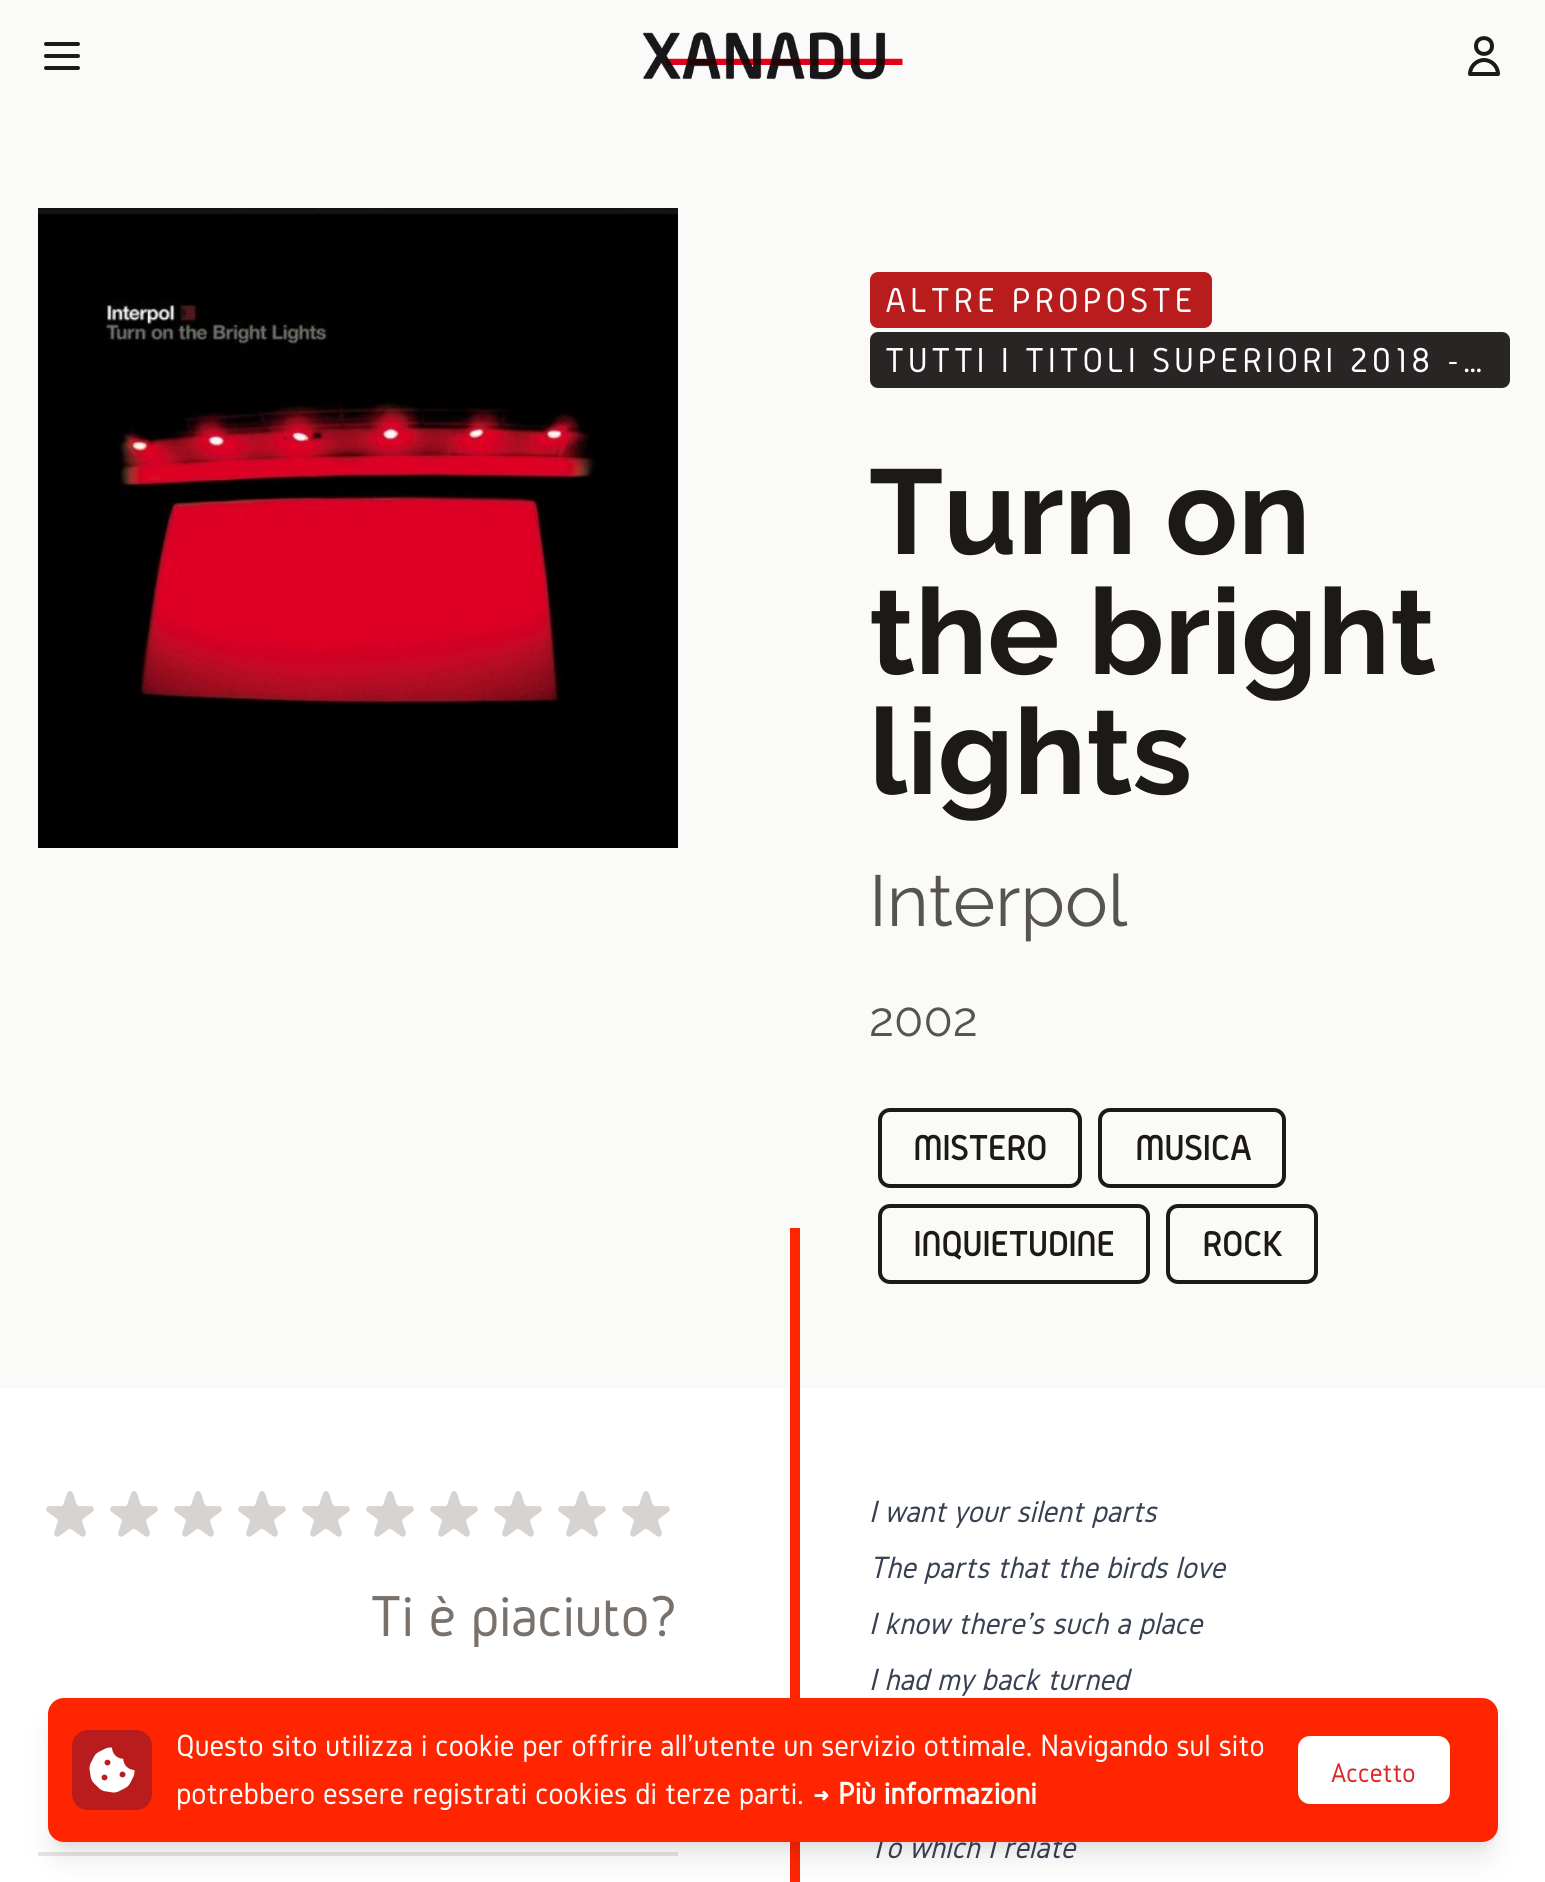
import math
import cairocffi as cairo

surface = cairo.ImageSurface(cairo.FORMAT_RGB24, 1545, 1882)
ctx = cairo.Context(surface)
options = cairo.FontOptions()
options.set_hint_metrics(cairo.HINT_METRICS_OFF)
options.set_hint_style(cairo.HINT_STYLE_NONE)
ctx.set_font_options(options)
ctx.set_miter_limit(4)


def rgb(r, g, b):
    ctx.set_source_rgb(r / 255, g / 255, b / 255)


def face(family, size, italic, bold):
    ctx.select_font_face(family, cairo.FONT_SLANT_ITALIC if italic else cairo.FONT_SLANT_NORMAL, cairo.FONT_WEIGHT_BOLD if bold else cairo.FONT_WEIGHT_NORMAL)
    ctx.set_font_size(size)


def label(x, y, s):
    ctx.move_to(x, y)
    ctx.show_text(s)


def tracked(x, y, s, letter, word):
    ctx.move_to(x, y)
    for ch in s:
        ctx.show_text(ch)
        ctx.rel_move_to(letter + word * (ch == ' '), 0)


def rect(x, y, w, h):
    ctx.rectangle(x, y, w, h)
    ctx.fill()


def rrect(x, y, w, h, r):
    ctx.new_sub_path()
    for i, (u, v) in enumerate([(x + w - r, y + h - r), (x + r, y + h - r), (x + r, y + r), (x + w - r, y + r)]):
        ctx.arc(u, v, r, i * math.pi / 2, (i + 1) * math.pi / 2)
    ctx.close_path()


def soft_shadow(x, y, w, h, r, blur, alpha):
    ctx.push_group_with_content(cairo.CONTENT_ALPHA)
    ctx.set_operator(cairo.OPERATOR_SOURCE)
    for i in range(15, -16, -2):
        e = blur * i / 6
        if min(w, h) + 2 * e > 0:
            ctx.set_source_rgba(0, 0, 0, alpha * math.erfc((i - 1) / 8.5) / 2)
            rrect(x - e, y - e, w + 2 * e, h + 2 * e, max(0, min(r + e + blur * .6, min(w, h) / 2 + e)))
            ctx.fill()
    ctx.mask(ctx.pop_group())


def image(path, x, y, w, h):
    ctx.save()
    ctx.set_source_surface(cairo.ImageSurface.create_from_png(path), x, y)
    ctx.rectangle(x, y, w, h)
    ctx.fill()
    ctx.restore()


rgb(250, 250, 249)
ctx.paint()
ctx.new_path()
ctx.move_to(46, 44)
ctx.line_to(78, 44)
ctx.move_to(46, 56)
ctx.line_to(78, 56)
ctx.move_to(46, 68)
ctx.line_to(78, 68)
rgb(28, 25, 23)
ctx.set_line_width(4)
ctx.set_line_cap(cairo.LINE_CAP_ROUND)
ctx.set_line_join(cairo.LINE_JOIN_ROUND)
ctx.stroke()
image('image0.png', 642, 32, 261, 48)
ctx.new_path()
ctx.move_to(1492, 46)
ctx.curve_to(1492, 56.5, 1476, 56.5, 1476, 46)
ctx.curve_to(1476, 35.5, 1492, 35.5, 1492, 46)
ctx.close_path()
ctx.move_to(1484, 60)
ctx.curve_to(1476.5, 60, 1470, 66.5, 1470, 74)
ctx.line_to(1498, 74)
ctx.curve_to(1498, 66.5, 1491.5, 60, 1484, 60)
ctx.close_path()
ctx.stroke()
image('image1.png', 38, 208, 640, 640)
rgb(185, 28, 28)
rrect(870, 272, 342, 56, 8)
ctx.fill()
face('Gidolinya', 36, 0, 0)
rgb(255, 255, 255)
tracked(885, 312, 'ALTRE PROPOSTE', 3.6, 0)
rgb(41, 37, 36)
rrect(870, 332, 640, 56, 8)
ctx.fill()
rgb(255, 255, 255)
tracked(885, 372, 'TUTTI I TITOLI SUPERIORI 2018 -…', 3.6, 0)
face('Raleway', 120, 0, 1)
rgb(28, 25, 23)
label(869, 554, 'Turn on')
label(869, 674, 'the bright')
label(869, 794, 'lights')
face('Raleway', 72, 0, 0)
rgb(87, 83, 78)
label(869, 926, 'Interpol')
face('Raleway', 48, 0, 0)
label(869, 1036, '2002')
rrect(880, 1110, 200, 76, 10)
rgb(28, 25, 23)
ctx.set_line_cap(cairo.LINE_CAP_BUTT)
ctx.set_line_join(cairo.LINE_JOIN_MITER)
ctx.stroke()
face('Gidolinya', 36, 0, 1)
label(913, 1160, 'MISTERO')
rrect(1100, 1110, 184, 76, 10)
ctx.stroke()
label(1135, 1160, 'MUSICA')
rrect(880, 1206, 268, 76, 10)
ctx.stroke()
label(913, 1256, 'INQUIETUDINE')
rrect(1168, 1206, 148, 76, 10)
ctx.stroke()
label(1202, 1256, 'ROCK')
rgb(255, 255, 255)
rect(0, 1388, 1545, 494)
image('image2.png', 46, 1491, 48, 46)
image('image2.png', 110, 1491, 48, 46)
image('image2.png', 174, 1491, 48, 46)
image('image2.png', 238, 1491, 48, 46)
image('image2.png', 302, 1491, 48, 46)
image('image2.png', 366, 1491, 48, 46)
image('image2.png', 430, 1491, 48, 46)
image('image2.png', 494, 1491, 48, 46)
image('image2.png', 558, 1491, 48, 46)
image('image2.png', 622, 1491, 48, 46)
face('Gidolinya', 60, 0, 0)
rgb(120, 113, 108)
label(370, 1636, 'Ti è piaciuto?')
rgb(231, 229, 228)
rect(38, 1852, 640, 4)
rgb(255, 37, 0)
rect(790, 1228, 10, 654)
face('Gidole', 32, 1, 0)
rgb(55, 65, 81)
label(869, 1522, 'I want your silent parts')
label(869, 1578, 'The parts that the birds love')
label(869, 1634, 'I know there\'s such a place')
label(869, 1690, 'I had my back turned')
label(869, 1858, 'To which I relate')
rgb(0, 0, 0)
soft_shadow(56, 1714, 1434, 128, 8, 6, 0.1)
soft_shadow(54, 1724, 1438, 132, 10, 15, 0.1)
rgb(255, 37, 0)
rrect(48, 1698, 1450, 144, 16)
ctx.fill()
rgb(185, 28, 28)
rrect(72, 1730, 80, 80, 16)
ctx.fill()
image('image3.png', 89, 1747, 46, 46)
face('Gidole', 32, 0, 0)
rgb(255, 255, 255)
label(176, 1756, 'Questo sito utilizza i cookie per offrire all\'utente un servizio ottimale. Navigando sul sito')
label(176, 1804, 'potrebbero essere registrati cookies di terze parti.')
face('Gidole', 32, 0, 1)
label(812, 1804, '→ Più informazioni')
rgb(0, 0, 0)
soft_shadow(1298, 1738, 152, 68, 12, 2, 0.05)
rgb(255, 255, 255)
rrect(1298, 1736, 152, 68, 12)
ctx.fill()
face('Gidole', 28, 0, 0)
rgb(220, 38, 38)
label(1331, 1782, 'Accetto')
surface.write_to_png('render.png')
